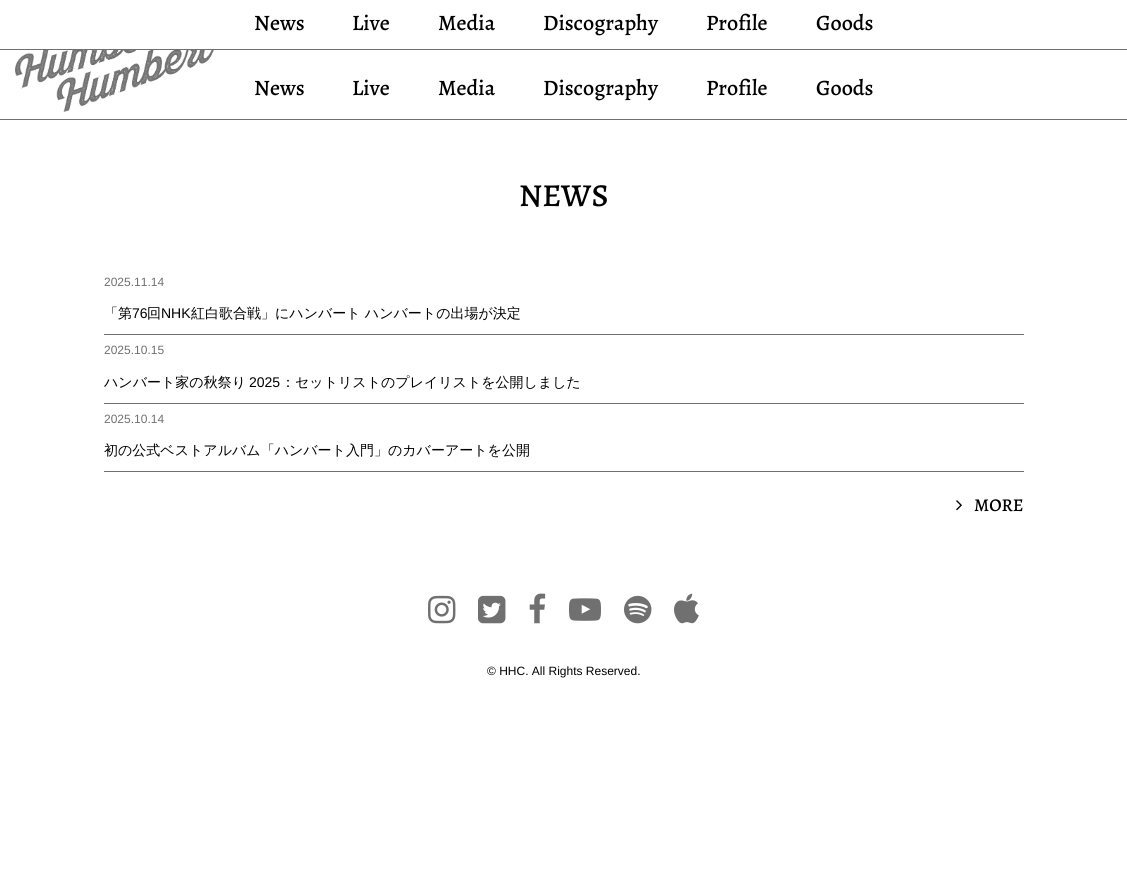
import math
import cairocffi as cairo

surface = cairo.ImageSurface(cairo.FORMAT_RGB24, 1127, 870)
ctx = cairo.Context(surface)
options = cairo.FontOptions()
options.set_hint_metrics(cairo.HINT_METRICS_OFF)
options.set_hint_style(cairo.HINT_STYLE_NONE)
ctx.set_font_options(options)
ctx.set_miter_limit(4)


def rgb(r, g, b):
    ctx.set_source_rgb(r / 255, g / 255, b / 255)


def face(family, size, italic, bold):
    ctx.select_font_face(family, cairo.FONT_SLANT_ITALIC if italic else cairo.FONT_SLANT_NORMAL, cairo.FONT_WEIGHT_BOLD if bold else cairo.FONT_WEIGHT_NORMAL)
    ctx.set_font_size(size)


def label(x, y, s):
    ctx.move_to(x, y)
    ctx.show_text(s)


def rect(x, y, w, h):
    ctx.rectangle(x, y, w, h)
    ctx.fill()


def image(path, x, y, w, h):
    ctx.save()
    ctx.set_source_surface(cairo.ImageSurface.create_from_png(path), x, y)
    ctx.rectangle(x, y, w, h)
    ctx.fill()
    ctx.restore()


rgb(255, 255, 255)
ctx.paint()
rgb(112, 112, 112)
rect(0, 119, 1127, 1)
rect(0, 49, 1127, 1)
face('Alegreya Medium', 22, 0, 0)
rgb(0, 0, 0)
label(254, 30, 'News')
label(352, 30, 'Live')
label(438, 30, 'Media')
label(543, 30, 'Discography')
label(706, 30, 'Profile')
label(816, 30, 'Goods')
image('image0.png', 15, 50, 199, 62)
label(254, 95, 'News')
label(352, 95, 'Live')
label(438, 95, 'Media')
label(543, 95, 'Discography')
label(706, 95, 'Profile')
label(816, 95, 'Goods')
face('Alegreya Medium', 32, 0, 0)
label(519, 206, 'NEWS')
rgb(112, 112, 112)
rect(104, 334, 920, 1)
face('Liberation Sans', 12, 0, 0)
label(104, 286, '2025.11.14')
face('WenQuanYi Zen Hei Medium', 14, 0, 0)
rgb(0, 0, 0)
label(104, 318, '「第')
face('Liberation Sans', 14, 0, 0)
label(132, 318, '76')
face('WenQuanYi Zen Hei Medium', 14, 0, 0)
label(147, 318, '回')
face('Liberation Sans', 14, 0, 0)
label(161, 318, 'NHK')
face('WenQuanYi Zen Hei Medium', 14, 0, 0)
label(191, 318, '紅白歌合戦」にハンバート ハンバートの出場が決定')
rgb(112, 112, 112)
rect(104, 403, 920, 1)
face('Liberation Sans', 12, 0, 0)
label(104, 354, '2025.10.15')
face('WenQuanYi Zen Hei Medium', 14, 0, 0)
rgb(0, 0, 0)
label(104, 387, 'ハンバート家の秋祭り')
face('Liberation Sans', 14, 0, 0)
label(249, 387, '2025')
face('WenQuanYi Zen Hei Medium', 14, 0, 0)
label(281, 387, '：セットリストのプレイリストを公開しました')
rgb(112, 112, 112)
rect(104, 471, 920, 1)
face('Liberation Sans', 12, 0, 0)
label(104, 423, '2025.10.14')
face('WenQuanYi Zen Hei Medium', 14, 0, 0)
rgb(0, 0, 0)
label(104, 455, '初の公式ベストアルバム「ハンバート入門」のカバーアートを公開')
image('image1.png', 956, 500, 6, 11)
face('Alegreya Medium', 18, 0, 0)
label(974, 511, 'MORE')
image('image2.png', 428, 595, 28, 29)
image('image3.png', 478, 595, 28, 29)
image('image4.png', 529, 593, 17, 31)
image('image5.png', 569, 598, 32, 23)
image('image6.png', 624, 595, 28, 29)
image('image7.png', 674, 593, 25, 31)
face('Liberation Sans', 12, 0, 0)
label(487, 675, '© HHC. All Rights Reserved.')
surface.write_to_png('render.png')
